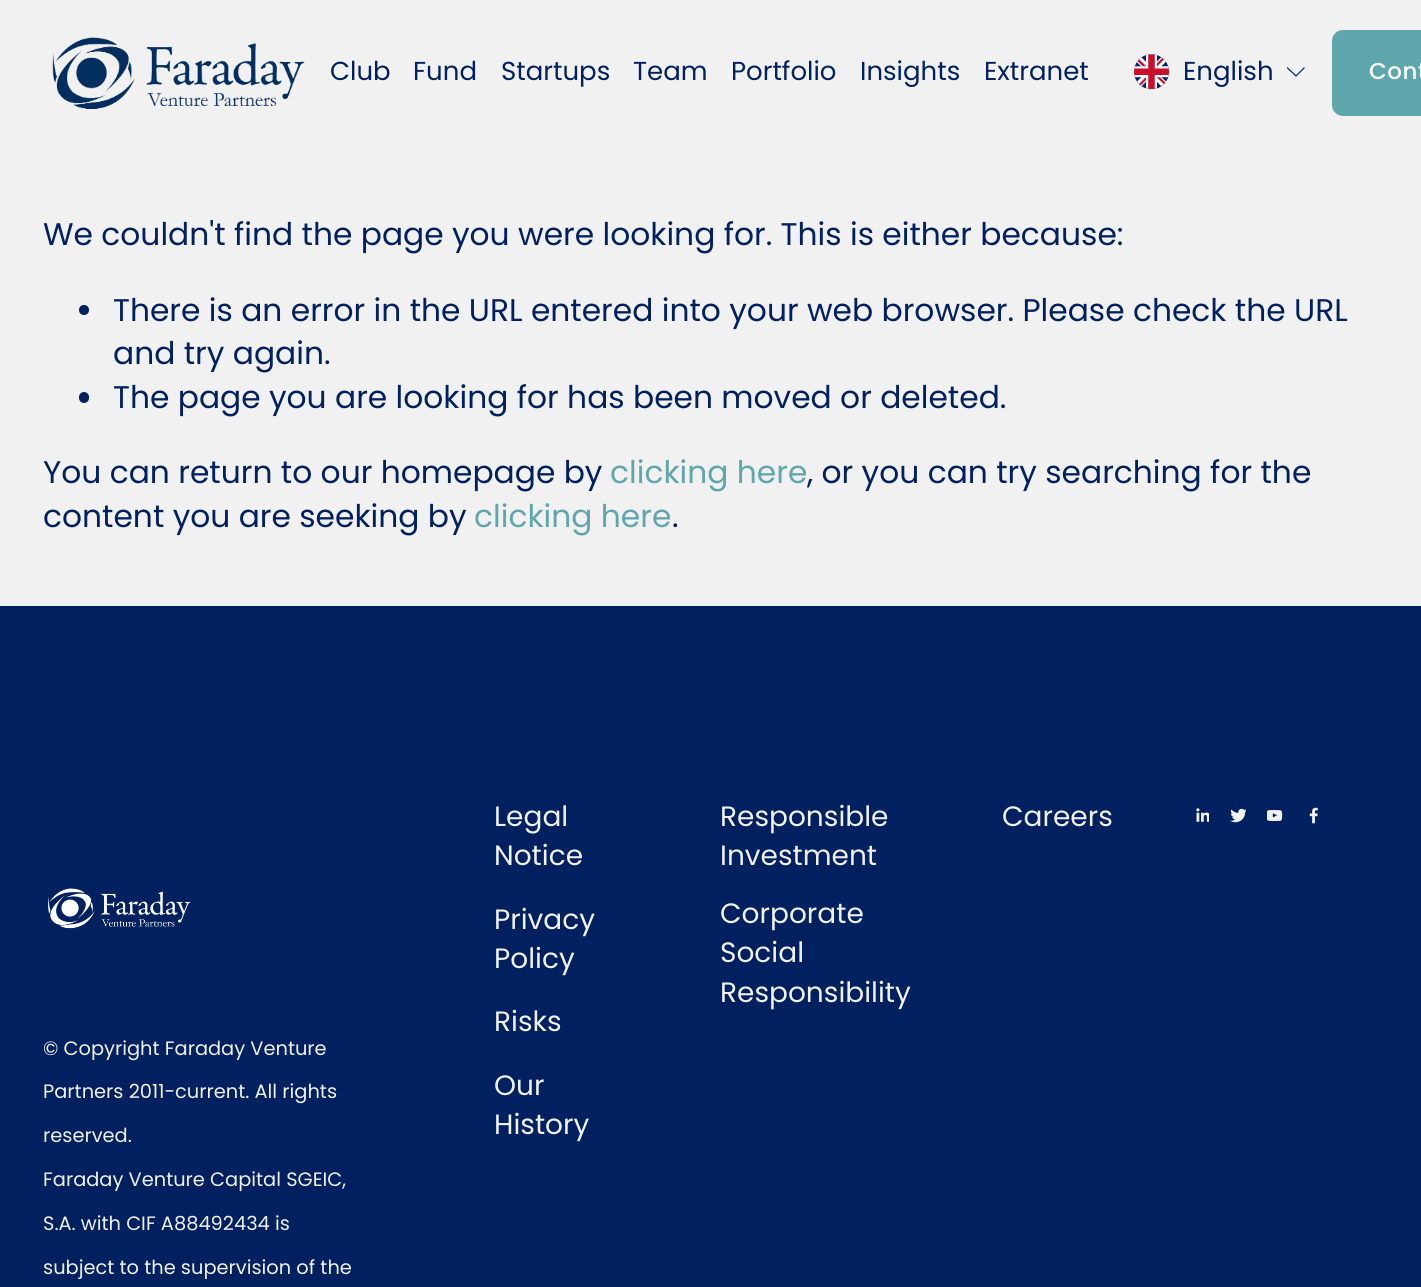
import math
import cairocffi as cairo

surface = cairo.ImageSurface(cairo.FORMAT_RGB24, 1421, 1287)
ctx = cairo.Context(surface)
options = cairo.FontOptions()
options.set_hint_metrics(cairo.HINT_METRICS_OFF)
options.set_hint_style(cairo.HINT_STYLE_NONE)
ctx.set_font_options(options)
ctx.set_miter_limit(4)


def rgb(r, g, b):
    ctx.set_source_rgb(r / 255, g / 255, b / 255)


def face(family, size, italic, bold):
    ctx.select_font_face(family, cairo.FONT_SLANT_ITALIC if italic else cairo.FONT_SLANT_NORMAL, cairo.FONT_WEIGHT_BOLD if bold else cairo.FONT_WEIGHT_NORMAL)
    ctx.set_font_size(size)


def label(x, y, s):
    ctx.move_to(x, y)
    ctx.show_text(s)


def tracked(x, y, s, letter, word):
    ctx.move_to(x, y)
    for ch in s:
        ctx.show_text(ch)
        ctx.rel_move_to(letter + word * (ch == ' '), 0)


def rect(x, y, w, h):
    ctx.rectangle(x, y, w, h)
    ctx.fill()


def rrect(x, y, w, h, r):
    ctx.new_sub_path()
    for i, (u, v) in enumerate([(x + w - r, y + h - r), (x + r, y + h - r), (x + r, y + r), (x + w - r, y + r)]):
        ctx.arc(u, v, r, i * math.pi / 2, (i + 1) * math.pi / 2)
    ctx.close_path()


def image(path, x, y, w, h):
    ctx.save()
    ctx.set_source_surface(cairo.ImageSurface.create_from_png(path), x, y)
    ctx.rectangle(x, y, w, h)
    ctx.fill()
    ctx.restore()


rgb(241, 241, 241)
ctx.paint()
image('image0.png', 52, 37, 253, 73)
face('Poppins', 26, 0, 0)
rgb(0, 32, 96)
label(330, 80, 'Club')
label(413, 80, 'Fund')
label(501, 80, 'Startups')
label(633, 80, 'Team')
label(731, 80, 'Portfolio')
label(860, 80, 'Insights')
label(984, 80, 'Extranet')
image('image1.png', 1134, 54, 35, 35)
label(1183, 80, 'English')
ctx.new_path()
ctx.move_to(1304, 68)
ctx.line_to(1296, 76)
ctx.line_to(1287.5, 68)
ctx.set_line_width(1.2)
ctx.set_line_cap(cairo.LINE_CAP_SQUARE)
ctx.stroke()
rgb(95, 167, 172)
rrect(1332, 30, 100, 86, 11)
ctx.fill()
face('Poppins Medium', 23, 0, 0)
rgb(255, 255, 255)
tracked(1369, 79, 'Cont', 0.5, 0)
face('Poppins', 31.3, 0, 0)
rgb(0, 32, 96)
label(43, 245, 'We couldn\'t find the page you were looking for. This is either because:')
ctx.new_path()
ctx.arc(84, 310, 5, 0, 2 * math.pi)
ctx.fill()
label(113, 321, 'There is an error in the URL entered into your web browser. Please check the URL')
label(113, 364, 'and try again.')
rrect(79, 392, 10, 11, 5)
ctx.fill()
label(113, 408, 'The page you are looking for has been moved or deleted.')
label(43, 483, 'You can return to our homepage by')
rgb(95, 167, 172)
label(610, 483, 'clicking here')
rgb(0, 32, 96)
label(807, 483, ', or you can try searching for the')
label(43, 527, 'content you are seeking by')
rgb(95, 167, 172)
label(474, 527, 'clicking here')
rgb(0, 32, 96)
label(672, 527, '.')
rect(0, 606, 1421, 681)
face('Poppins', 28, 0, 0)
rgb(241, 241, 241)
label(494, 826, 'Legal')
label(494, 865, 'Notice')
label(494, 929, 'Privacy')
label(494, 968, 'Policy')
label(494, 1031, 'Risks')
label(494, 1095, 'Our')
label(494, 1134, 'History')
label(720, 826, 'Responsible')
label(720, 865, 'Investment')
label(1002, 826, 'Careers')
image('image2.png', 1196, 808, 13, 14)
image('image3.png', 1230, 808, 16, 15)
image('image4.png', 1267, 810, 16, 11)
image('image5.png', 1309, 807, 9, 17)
image('image6.png', 48, 888, 143, 41)
label(720, 923, 'Corporate')
label(720, 962, 'Social')
label(720, 1002, 'Responsibility')
face('Poppins', 19.4, 0, 0)
label(43, 1055, '© Copyright Faraday Venture')
label(43, 1098, 'Partners 2011-current. All rights')
label(43, 1142, 'reserved.')
label(43, 1186, 'Faraday Venture Capital SGEIC,')
label(43, 1230, 'S.A. with CIF A88492434 is')
label(43, 1274, 'subject to the supervision of the')
surface.write_to_png('render.png')
